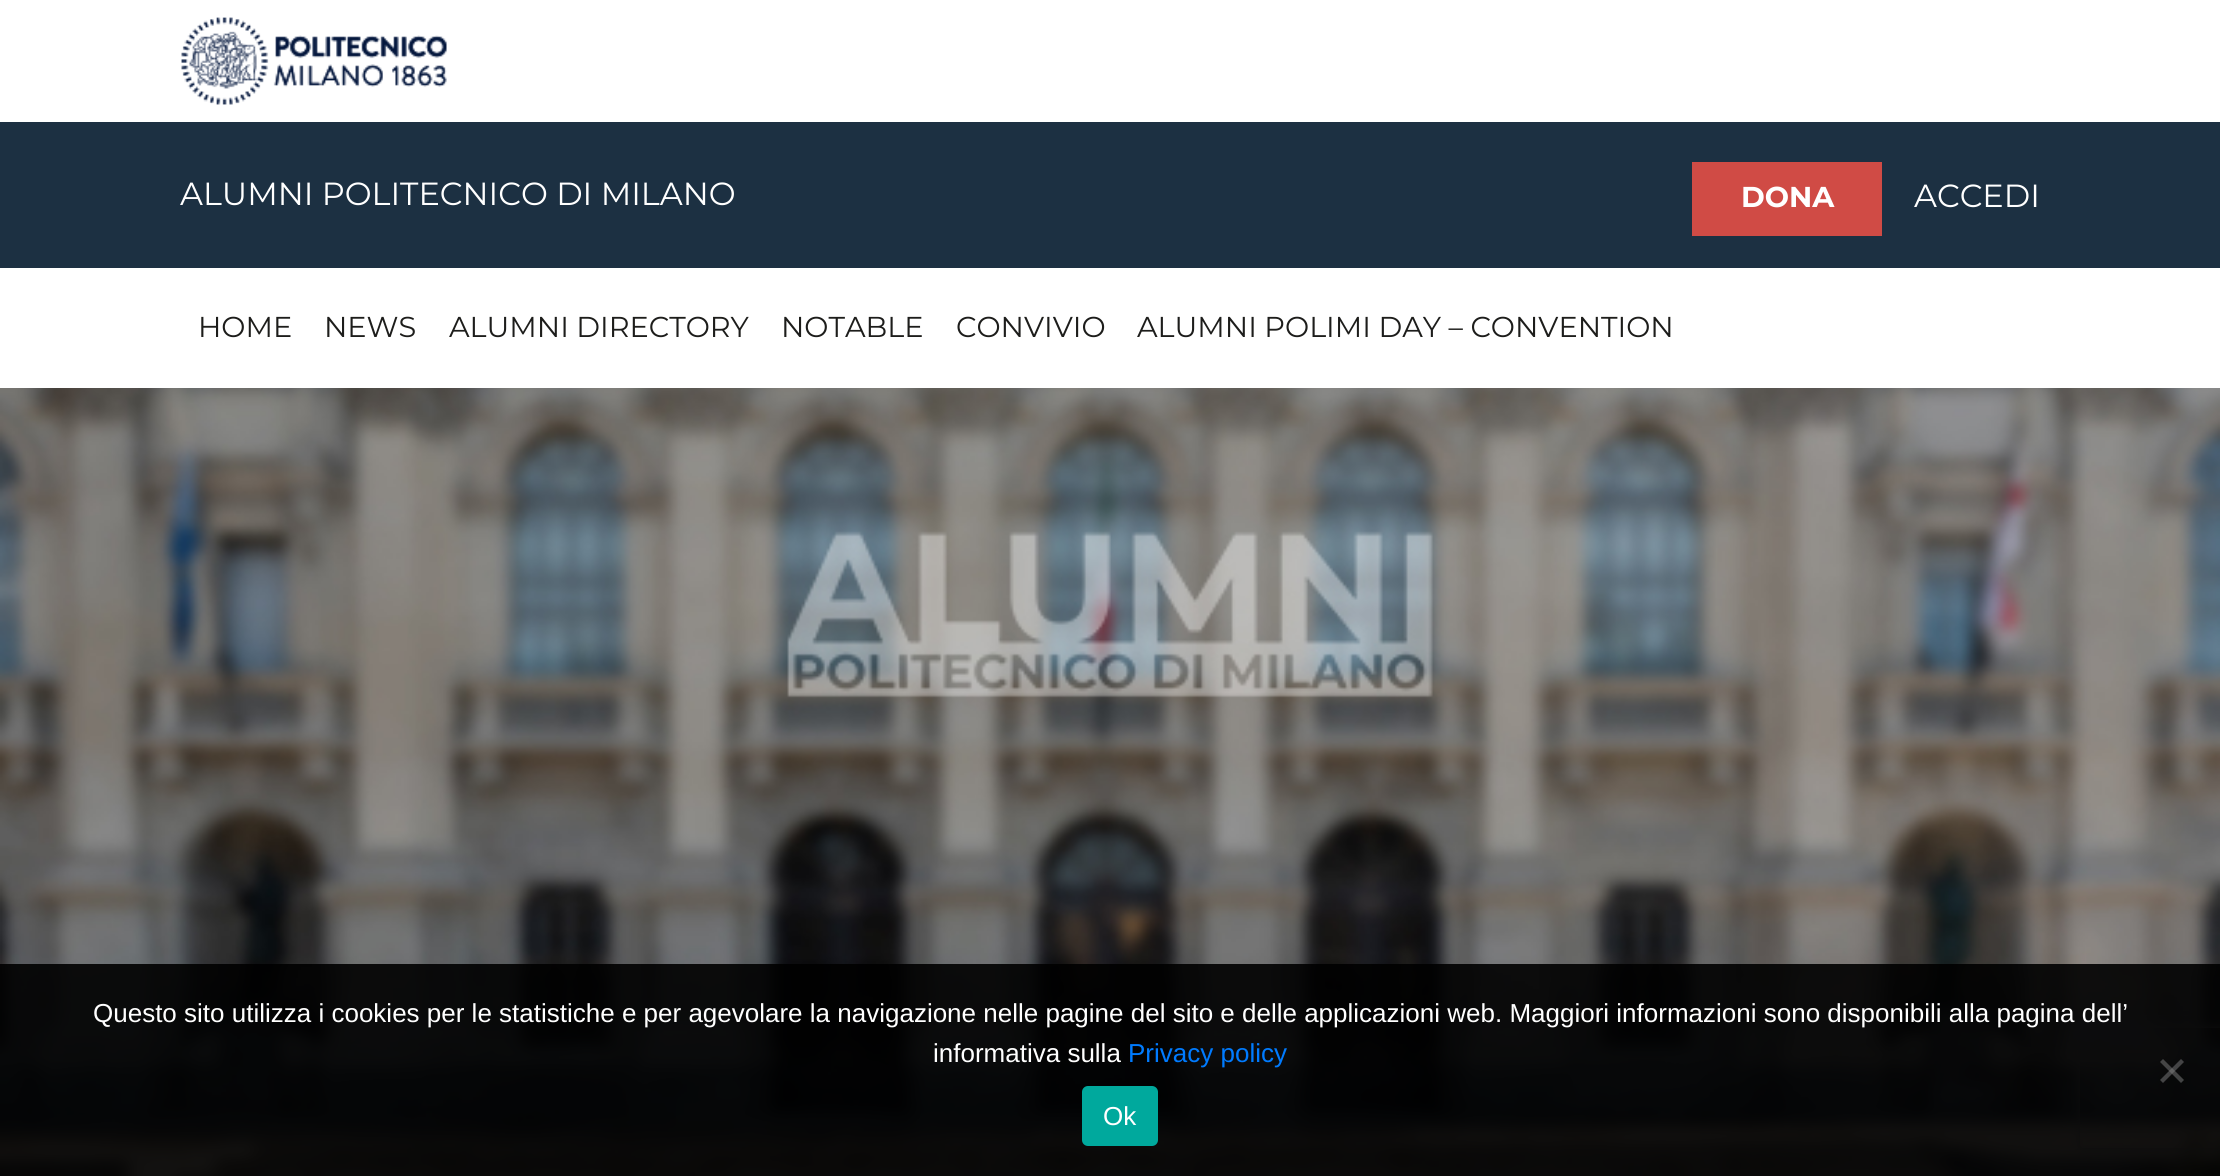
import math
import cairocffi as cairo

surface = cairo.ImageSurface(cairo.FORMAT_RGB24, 2220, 1176)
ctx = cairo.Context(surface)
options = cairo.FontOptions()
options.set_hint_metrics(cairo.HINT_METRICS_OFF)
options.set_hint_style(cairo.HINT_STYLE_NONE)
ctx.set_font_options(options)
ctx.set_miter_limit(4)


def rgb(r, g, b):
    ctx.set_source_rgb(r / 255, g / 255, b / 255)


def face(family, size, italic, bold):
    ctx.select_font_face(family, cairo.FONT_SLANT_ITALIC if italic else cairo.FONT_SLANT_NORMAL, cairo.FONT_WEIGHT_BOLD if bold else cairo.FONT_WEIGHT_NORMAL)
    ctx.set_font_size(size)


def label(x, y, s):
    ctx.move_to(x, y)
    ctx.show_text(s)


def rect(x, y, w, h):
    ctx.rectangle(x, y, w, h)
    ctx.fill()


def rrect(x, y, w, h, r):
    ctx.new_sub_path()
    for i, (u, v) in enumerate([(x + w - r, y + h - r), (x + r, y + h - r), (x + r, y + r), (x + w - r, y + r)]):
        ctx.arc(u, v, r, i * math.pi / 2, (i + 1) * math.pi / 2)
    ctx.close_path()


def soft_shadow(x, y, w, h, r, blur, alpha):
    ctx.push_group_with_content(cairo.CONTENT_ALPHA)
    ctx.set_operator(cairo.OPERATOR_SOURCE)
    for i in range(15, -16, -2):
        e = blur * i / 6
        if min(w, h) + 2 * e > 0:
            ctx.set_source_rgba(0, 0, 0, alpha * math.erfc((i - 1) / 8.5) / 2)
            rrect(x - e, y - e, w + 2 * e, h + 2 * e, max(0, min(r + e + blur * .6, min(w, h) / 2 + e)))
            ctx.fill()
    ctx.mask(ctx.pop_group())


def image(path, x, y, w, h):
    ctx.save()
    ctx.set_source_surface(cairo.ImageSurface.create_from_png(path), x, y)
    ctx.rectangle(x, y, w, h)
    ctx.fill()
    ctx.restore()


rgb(255, 255, 255)
ctx.paint()
image('image0.png', 181, 17, 266, 88)
rgb(28, 48, 66)
rect(0, 122, 2220, 146)
face('Montserrat', 32, 0, 0)
rgb(255, 255, 255)
label(180, 205, 'ALUMNI POLITECNICO DI MILANO')
rgb(208, 75, 69)
rect(1692, 162, 190, 74)
face('Montserrat', 28.75, 0, 1)
rgb(255, 255, 255)
label(1741, 207, 'DONA')
face('Montserrat', 32, 0, 0)
label(1914, 207, 'ACCEDI')
face('Montserrat', 28.75, 0, 0)
rgb(29, 29, 27)
label(198, 337, 'HOME')
label(324, 337, 'NEWS')
label(449, 337, 'ALUMNI DIRECTORY')
label(781, 337, 'NOTABLE')
label(956, 337, 'CONVIVIO')
label(1137, 337, 'ALUMNI POLIMI DAY – CONVENTION')
image('image1.png', 0, 388, 2220, 788)
ctx.save()
ctx.set_fill_rule(cairo.FILL_RULE_EVEN_ODD)
ctx.new_path()
ctx.move_to(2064, 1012)
ctx.line_to(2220, 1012)
ctx.line_to(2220, 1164)
ctx.line_to(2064, 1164)
ctx.close_path()
ctx.move_to(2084, 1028)
ctx.line_to(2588, 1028)
ctx.curve_to(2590, 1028, 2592, 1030, 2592, 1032)
ctx.line_to(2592, 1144)
ctx.curve_to(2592, 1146, 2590, 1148, 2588, 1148)
ctx.line_to(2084, 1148)
ctx.curve_to(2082, 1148, 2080, 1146, 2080, 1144)
ctx.line_to(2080, 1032)
ctx.curve_to(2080, 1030, 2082, 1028, 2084, 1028)
ctx.close_path()
ctx.clip()
rgb(128, 128, 128)
soft_shadow(2080, 1028, 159, 120, 4, 5, 1)
ctx.restore()
ctx.set_source_rgba(0, 0, 0, 0.9)
rect(0, 964, 2220, 212)
face('Liberation Sans', 26, 0, 0)
rgb(255, 255, 255)
label(93, 1022, 'Questo sito utilizza i cookies per le statistiche e per agevolare la navigazione nelle pagine del sito e delle applicazioni web. Maggiori informazioni sono disponibili alla pagina dell’')
label(933, 1062, 'informativa sulla')
rgb(0, 123, 255)
label(1128, 1062, 'Privacy policy')
rgb(68, 68, 69)
ctx.new_path()
ctx.move_to(2181, 1059)
ctx.line_to(2184, 1062)
ctx.line_to(2163, 1083)
ctx.line_to(2160, 1080)
ctx.close_path()
ctx.fill()
ctx.set_source_rgba(0.502, 0.502, 0.502, 0.5)
ctx.new_path()
ctx.move_to(2160, 1062)
ctx.line_to(2163, 1059)
ctx.line_to(2184, 1080)
ctx.line_to(2181, 1083)
ctx.close_path()
ctx.fill()
rgb(0, 169, 157)
rrect(1082, 1086, 76, 60, 6)
ctx.fill()
rgb(255, 255, 255)
label(1103, 1125, 'Ok')
surface.write_to_png('render.png')
